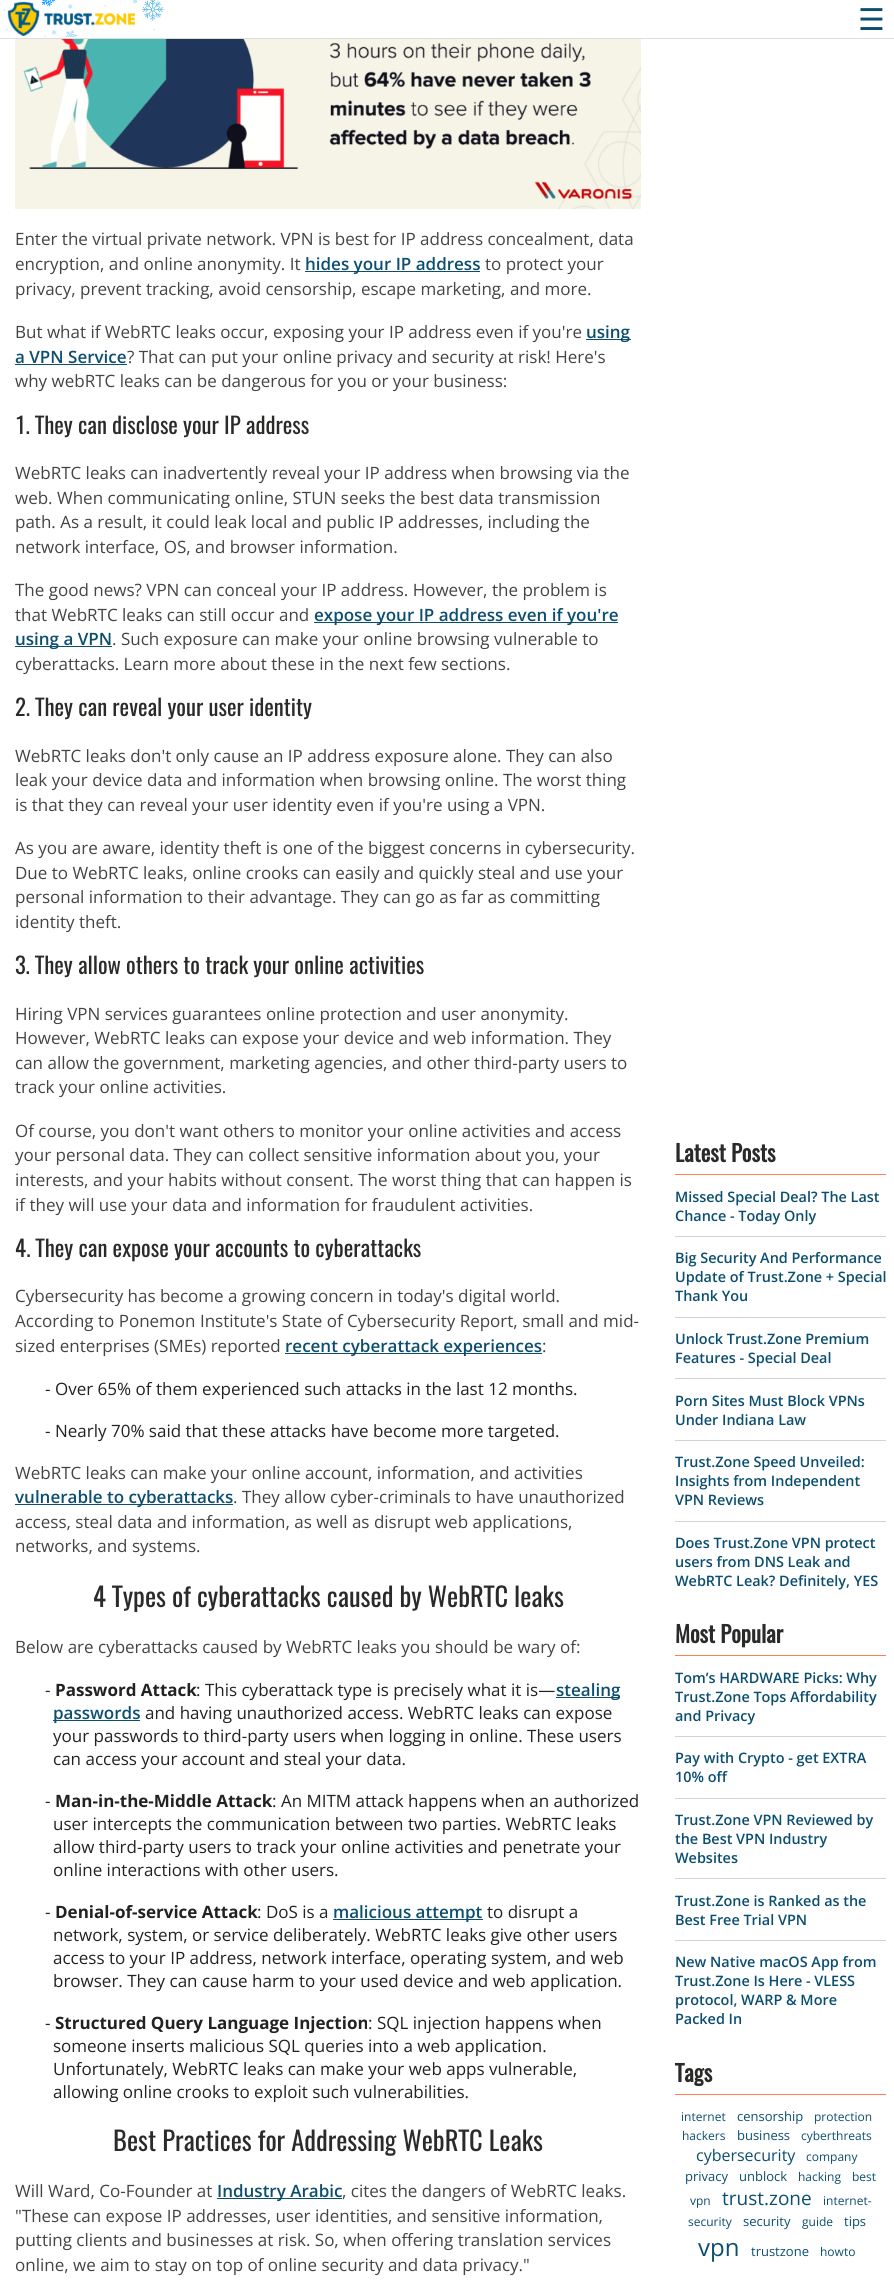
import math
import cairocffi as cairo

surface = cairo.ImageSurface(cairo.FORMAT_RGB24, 894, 2282)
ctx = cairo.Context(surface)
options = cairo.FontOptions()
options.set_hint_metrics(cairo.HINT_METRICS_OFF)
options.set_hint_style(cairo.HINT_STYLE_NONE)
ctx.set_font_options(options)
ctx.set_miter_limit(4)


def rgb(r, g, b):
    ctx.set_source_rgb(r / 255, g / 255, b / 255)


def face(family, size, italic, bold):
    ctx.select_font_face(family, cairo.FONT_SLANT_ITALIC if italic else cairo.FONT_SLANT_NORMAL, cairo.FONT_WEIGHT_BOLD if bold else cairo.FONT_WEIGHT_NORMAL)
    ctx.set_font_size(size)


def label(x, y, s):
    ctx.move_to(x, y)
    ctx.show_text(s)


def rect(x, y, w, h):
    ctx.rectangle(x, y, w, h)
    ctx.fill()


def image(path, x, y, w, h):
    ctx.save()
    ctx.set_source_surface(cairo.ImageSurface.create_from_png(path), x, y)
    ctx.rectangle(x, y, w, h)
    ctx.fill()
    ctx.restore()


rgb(255, 255, 255)
ctx.paint()
rgb(221, 221, 221)
rect(0, 38, 894, 1)
image('image0.png', 3, 0, 161, 37)
image('image1.png', 7, 1, 128, 35)
face('DejaVu Sans', 30, 0, 0)
rgb(11, 78, 112)
label(858, 30, '☰')
image('image2.png', 15, 39, 626, 170)
face('Open Sans', 17, 0, 0)
rgb(68, 68, 68)
label(15, 245, 'Enter the virtual private network. VPN is best for IP address concealment, data')
label(15, 270, 'encryption, and online anonymity. It')
rgb(11, 78, 112)
rect(305, 271, 175, 1)
face('Open Sans SemiBold', 17, 0, 0)
label(305, 270, 'hides your IP address')
face('Open Sans', 17, 0, 0)
rgb(68, 68, 68)
label(485, 270, 'to protect your')
label(15, 295, 'privacy, prevent tracking, avoid censorship, escape marketing, and more.')
label(15, 338, 'But what if WebRTC leaks occur, exposing your IP address even if you\'re')
rgb(11, 78, 112)
rect(586, 339, 45, 1)
face('Open Sans SemiBold', 17, 0, 0)
label(586, 338, 'using')
label(15, 363, 'a VPN Service')
rect(15, 364, 112, 1)
face('Open Sans', 17, 0, 0)
rgb(68, 68, 68)
label(127, 363, '? That can put your online privacy and security at risk! Here\'s')
label(15, 387, 'why webRTC leaks can be dangerous for you or your business:')
face('Oswald', 22.7, 0, 0)
rgb(43, 42, 41)
label(15, 434, '1. They can disclose your IP address')
face('Open Sans', 17, 0, 0)
rgb(68, 68, 68)
label(15, 479, 'WebRTC leaks can inadvertently reveal your IP address when browsing via the')
label(15, 504, 'web. When communicating online, STUN seeks the best data transmission')
label(15, 528, 'path. As a result, it could leak local and public IP addresses, including the')
label(15, 553, 'network interface, OS, and browser information.')
label(15, 596, 'The good news? VPN can conceal your IP address. However, the problem is')
label(15, 621, 'that WebRTC leaks can still occur and')
rgb(11, 78, 112)
rect(314, 622, 304, 1)
face('Open Sans SemiBold', 17, 0, 0)
label(314, 621, 'expose your IP address even if you\'re')
rect(15, 646, 97, 1)
label(15, 645, 'using a VPN')
face('Open Sans', 17, 0, 0)
rgb(68, 68, 68)
label(112, 645, '. Such exposure can make your online browsing vulnerable to')
label(15, 670, 'cyberattacks. Learn more about these in the next few sections.')
face('Oswald', 22.7, 0, 0)
rgb(43, 42, 41)
label(15, 716, '2. They can reveal your user identity')
face('Open Sans', 17, 0, 0)
rgb(68, 68, 68)
label(15, 762, 'WebRTC leaks don\'t only cause an IP address exposure alone. They can also')
label(15, 786, 'leak your device data and information when browsing online. The worst thing')
label(15, 811, 'is that they can reveal your user identity even if you\'re using a VPN.')
label(15, 854, 'As you are aware, identity theft is one of the biggest concerns in cybersecurity.')
label(15, 879, 'Due to WebRTC leaks, online crooks can easily and quickly steal and use your')
label(15, 903, 'personal information to their advantage. They can go as far as committing')
label(15, 928, 'identity theft.')
face('Oswald', 22.7, 0, 0)
rgb(43, 42, 41)
label(15, 974, '3. They allow others to track your online activities')
face('Open Sans', 17, 0, 0)
rgb(68, 68, 68)
label(15, 1020, 'Hiring VPN services guarantees online protection and user anonymity.')
label(15, 1044, 'However, WebRTC leaks can expose your device and web information. They')
label(15, 1069, 'can allow the government, marketing agencies, and other third-party users to')
label(15, 1093, 'track your online activities.')
label(15, 1137, 'Of course, you don\'t want others to monitor your online activities and access')
label(15, 1161, 'your personal data. They can collect sensitive information about you, your')
label(15, 1186, 'interests, and your habits without consent. The worst thing that can happen is')
label(15, 1211, 'if they will use your data and information for fraudulent activities.')
face('Oswald', 22.7, 0, 0)
rgb(43, 42, 41)
label(15, 1257, '4. They can expose your accounts to cyberattacks')
face('Open Sans', 17, 0, 0)
rgb(68, 68, 68)
label(15, 1302, 'Cybersecurity has become a growing concern in today\'s digital world.')
label(15, 1327, 'According to Ponemon Institute\'s State of Cybersecurity Report, small and mid-')
label(15, 1352, 'sized enterprises (SMEs) reported')
rgb(11, 78, 112)
rect(285, 1353, 257, 1)
face('Open Sans SemiBold', 17, 0, 0)
label(285, 1352, 'recent cyberattack experiences')
face('Open Sans', 17, 0, 0)
rgb(68, 68, 68)
label(542, 1352, ':')
rgb(34, 34, 34)
label(45, 1395, '-')
label(55, 1395, 'Over 65% of them experienced such attacks in the last 12 months.')
label(45, 1437, '-')
label(55, 1437, 'Nearly 70% said that these attacks have become more targeted.')
rgb(68, 68, 68)
label(15, 1479, 'WebRTC leaks can make your online account, information, and activities')
rgb(11, 78, 112)
rect(15, 1504, 218, 1)
face('Open Sans SemiBold', 17, 0, 0)
label(15, 1503, 'vulnerable to cyberattacks')
face('Open Sans', 17, 0, 0)
rgb(68, 68, 68)
label(233, 1503, '. They allow cyber-criminals to have unauthorized')
label(15, 1528, 'access, steal data and information, as well as disrupt web applications,')
label(15, 1552, 'networks, and systems.')
face('Oswald', 26.5, 0, 0)
rgb(43, 42, 41)
label(93, 1607, '4 Types of cyberattacks caused by WebRTC leaks')
face('Open Sans', 17, 0, 0)
rgb(68, 68, 68)
label(15, 1653, 'Below are cyberattacks caused by WebRTC leaks you should be wary of:')
rgb(34, 34, 34)
label(45, 1696, '-')
face('Open Sans', 17, 0, 1)
label(55, 1696, 'Password Attack')
face('Open Sans', 17, 0, 0)
label(196, 1696, ': This cyberattack type is precisely what it is—')
rgb(11, 78, 112)
rect(556, 1697, 64, 1)
face('Open Sans SemiBold', 17, 0, 0)
label(556, 1696, 'stealing')
rect(53, 1720, 87, 1)
label(53, 1719, 'passwords')
face('Open Sans', 17, 0, 0)
rgb(34, 34, 34)
label(145, 1719, 'and having unauthorized access. WebRTC leaks can expose')
label(53, 1742, 'your passwords to third-party users when logging in online. These users')
label(53, 1765, 'can access your account and steal your data.')
label(45, 1807, '-')
face('Open Sans', 17, 0, 1)
label(55, 1807, 'Man-in-the-Middle Attack')
face('Open Sans', 17, 0, 0)
label(272, 1807, ': An MITM attack happens when an authorized')
label(53, 1830, 'user intercepts the communication between two parties. WebRTC leaks')
label(53, 1853, 'allow third-party users to track your online activities and penetrate your')
label(53, 1876, 'online interactions with other users.')
label(45, 1918, '-')
face('Open Sans', 17, 0, 1)
label(55, 1918, 'Denial-of-service Attack')
face('Open Sans', 17, 0, 0)
label(257, 1918, ': DoS is a')
rgb(11, 78, 112)
rect(333, 1919, 150, 1)
face('Open Sans SemiBold', 17, 0, 0)
label(333, 1918, 'malicious attempt')
face('Open Sans', 17, 0, 0)
rgb(34, 34, 34)
label(487, 1918, 'to disrupt a')
label(53, 1941, 'network, system, or service deliberately. WebRTC leaks give other users')
label(53, 1964, 'access to your IP address, network interface, operating system, and web')
label(53, 1987, 'browser. They can cause harm to your used device and web application.')
label(45, 2029, '-')
face('Open Sans', 17, 0, 1)
label(55, 2029, 'Structured Query Language Injection')
face('Open Sans', 17, 0, 0)
label(368, 2029, ': SQL injection happens when')
label(53, 2052, 'someone inserts malicious SQL queries into a web application.')
label(53, 2075, 'Unfortunately, WebRTC leaks can make your web apps vulnerable,')
label(53, 2098, 'allowing online crooks to exploit such vulnerabilities.')
face('Oswald', 26.5, 0, 0)
rgb(43, 42, 41)
label(113, 2151, 'Best Practices for Addressing WebRTC Leaks')
face('Open Sans', 17, 0, 0)
rgb(68, 68, 68)
label(15, 2197, 'Will Ward, Co-Founder at')
rgb(11, 78, 112)
rect(217, 2198, 125, 1)
face('Open Sans SemiBold', 17, 0, 0)
label(217, 2197, 'Industry Arabic')
face('Open Sans', 17, 0, 0)
rgb(68, 68, 68)
label(342, 2197, ', cites the dangers of WebRTC leaks.')
label(15, 2222, '"These can expose IP addresses, user identities, and sensitive information,')
label(15, 2246, 'putting clients and businesses at risk. So, when offering translation services')
label(15, 2271, 'online, we aim to stay on top of online security and data privacy."')
face('Oswald', 22.7, 0, 1)
rgb(43, 42, 41)
label(675, 1162, 'Latest Posts')
rgb(255, 127, 80)
rect(675, 1174, 211, 1)
face('Open Sans SemiBold', 14.4, 0, 0)
rgb(11, 78, 112)
label(675, 1202, 'Missed Special Deal? The Last')
label(675, 1221, 'Chance - Today Only')
rgb(211, 211, 211)
rect(675, 1236, 211, 1)
rgb(11, 78, 112)
label(675, 1263, 'Big Security And Performance')
label(675, 1282, 'Update of Trust.Zone + Special')
label(675, 1301, 'Thank You')
rgb(211, 211, 211)
rect(675, 1317, 211, 1)
rgb(11, 78, 112)
label(675, 1344, 'Unlock Trust.Zone Premium')
label(675, 1363, 'Features - Special Deal')
rgb(211, 211, 211)
rect(675, 1378, 211, 1)
rgb(11, 78, 112)
label(675, 1406, 'Porn Sites Must Block VPNs')
label(675, 1425, 'Under Indiana Law')
rgb(211, 211, 211)
rect(675, 1440, 211, 1)
rgb(11, 78, 112)
label(675, 1467, 'Trust.Zone Speed Unveiled:')
label(675, 1486, 'Insights from Independent')
label(675, 1505, 'VPN Reviews')
rgb(211, 211, 211)
rect(675, 1521, 211, 1)
rgb(11, 78, 112)
label(675, 1548, 'Does Trust.Zone VPN protect')
label(675, 1567, 'users from DNS Leak and')
label(675, 1586, 'WebRTC Leak? Definitely, YES')
face('Oswald', 22.7, 0, 1)
rgb(43, 42, 41)
label(675, 1643, 'Most Popular')
rgb(255, 127, 80)
rect(675, 1655, 211, 1)
face('Open Sans SemiBold', 14.4, 0, 0)
rgb(11, 78, 112)
label(675, 1683, 'Tom’s HARDWARE Picks: Why')
label(675, 1702, 'Trust.Zone Tops Affordability')
label(675, 1721, 'and Privacy')
rgb(211, 211, 211)
rect(675, 1736, 211, 1)
rgb(11, 78, 112)
label(675, 1763, 'Pay with Crypto - get EXTRA')
label(675, 1782, '10% off')
rgb(211, 211, 211)
rect(675, 1798, 211, 1)
rgb(11, 78, 112)
label(675, 1825, 'Trust.Zone VPN Reviewed by')
label(675, 1844, 'the Best VPN Industry')
label(675, 1863, 'Websites')
rgb(211, 211, 211)
rect(675, 1878, 211, 1)
rgb(11, 78, 112)
label(675, 1906, 'Trust.Zone is Ranked as the')
label(675, 1925, 'Best Free Trial VPN')
rgb(211, 211, 211)
rect(675, 1940, 211, 1)
rgb(11, 78, 112)
label(675, 1967, 'New Native macOS App from')
label(675, 1986, 'Trust.Zone Is Here - VLESS')
label(675, 2005, 'protocol, WARP & More')
label(675, 2024, 'Packed In')
face('Oswald', 22.7, 0, 1)
rgb(43, 42, 41)
label(675, 2082, 'Tags')
rgb(255, 127, 80)
rect(675, 2094, 211, 1)
face('Open Sans', 12, 0, 0)
rgb(11, 78, 112)
label(681, 2121, 'internet')
face('Open Sans', 13, 0, 0)
label(737, 2121, 'censorship')
face('Open Sans', 12, 0, 0)
label(814, 2121, 'protection')
label(682, 2140, 'hackers')
face('Open Sans', 13, 0, 0)
label(737, 2140, 'business')
face('Open Sans', 12, 0, 0)
label(801, 2140, 'cyberthreats')
face('Open Sans', 16, 0, 0)
label(696, 2161, 'cybersecurity')
face('Open Sans', 12, 0, 0)
label(806, 2161, 'company')
face('Open Sans', 13, 0, 0)
label(685, 2181, 'privacy')
label(739, 2181, 'unblock')
face('Open Sans', 12, 0, 0)
label(798, 2181, 'hacking')
label(852, 2181, 'best')
label(690, 2205, 'vpn')
face('Open Sans', 19, 0, 0)
label(722, 2205, 'trust.zone')
face('Open Sans', 12, 0, 0)
label(823, 2205, 'internet-')
label(688, 2226, 'security')
face('Open Sans', 13, 0, 0)
label(743, 2226, 'security')
face('Open Sans', 12, 0, 0)
label(802, 2226, 'guide')
face('Open Sans', 13, 0, 0)
label(844, 2226, 'tips')
face('Open Sans', 24, 0, 0)
label(698, 2256, 'vpn')
face('Open Sans', 13, 0, 0)
label(751, 2256, 'trustzone')
face('Open Sans', 12, 0, 0)
label(820, 2256, 'howto')
surface.write_to_png('render.png')
